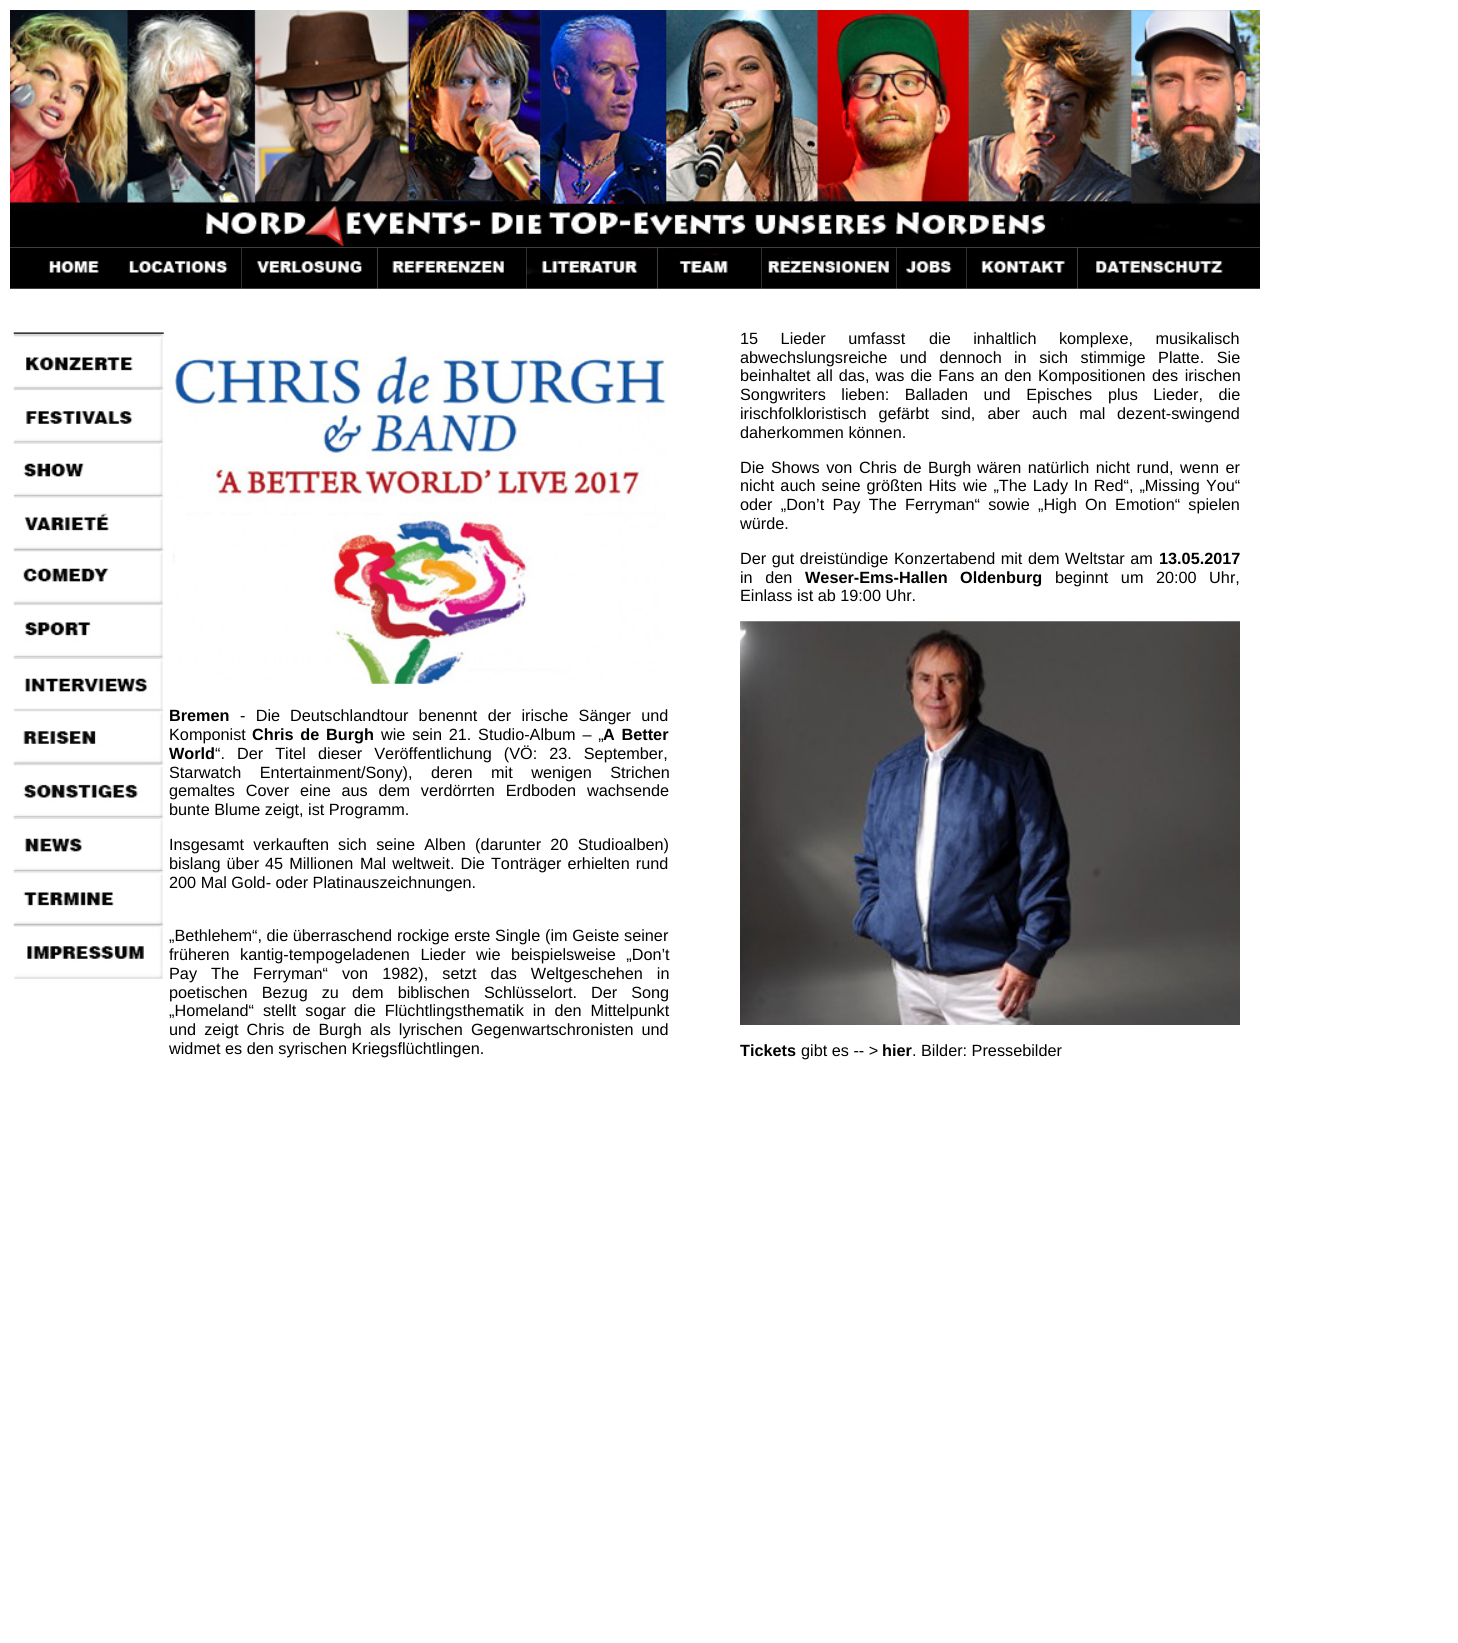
import math
import cairocffi as cairo

surface = cairo.ImageSurface(cairo.FORMAT_RGB24, 1458, 1643)
ctx = cairo.Context(surface)
options = cairo.FontOptions()
options.set_hint_metrics(cairo.HINT_METRICS_OFF)
options.set_hint_style(cairo.HINT_STYLE_NONE)
ctx.set_font_options(options)
ctx.set_miter_limit(4)


def rgb(r, g, b):
    ctx.set_source_rgb(r / 255, g / 255, b / 255)


def face(family, size, italic, bold):
    ctx.select_font_face(family, cairo.FONT_SLANT_ITALIC if italic else cairo.FONT_SLANT_NORMAL, cairo.FONT_WEIGHT_BOLD if bold else cairo.FONT_WEIGHT_NORMAL)
    ctx.set_font_size(size)


def label(x, y, s):
    ctx.move_to(x, y)
    ctx.show_text(s)


def tracked(x, y, s, letter, word):
    ctx.move_to(x, y)
    for ch in s:
        ctx.show_text(ch)
        ctx.rel_move_to(letter + word * (ch == ' '), 0)


def image(path, x, y, w, h):
    ctx.save()
    ctx.set_source_surface(cairo.ImageSurface.create_from_png(path), x, y)
    ctx.rectangle(x, y, w, h)
    ctx.fill()
    ctx.restore()


rgb(255, 255, 255)
ctx.paint()
image('image0.png', 10, 10, 1250, 238)
image('image1.png', 10, 247, 105, 42)
image('image2.png', 115, 247, 127, 42)
image('image3.png', 241, 247, 137, 42)
image('image4.png', 377, 247, 150, 42)
image('image5.png', 526, 247, 132, 42)
image('image6.png', 657, 247, 105, 42)
image('image7.png', 761, 247, 136, 42)
image('image8.png', 896, 247, 71, 42)
image('image9.png', 966, 247, 112, 42)
image('image10.png', 1077, 247, 183, 42)
image('image11.png', 13, 332, 151, 57)
image('image12.png', 13, 388, 151, 55)
image('image13.png', 13, 443, 151, 54)
image('image14.png', 13, 496, 151, 54)
image('image15.png', 13, 550, 151, 54)
image('image16.png', 13, 603, 151, 55)
image('image17.png', 13, 658, 151, 54)
image('image18.png', 13, 712, 151, 52)
image('image19.png', 13, 763, 151, 55)
image('image20.png', 13, 817, 151, 55)
image('image21.png', 13, 871, 151, 54)
image('image22.png', 13, 925, 151, 54)
image('image23.png', 169, 351, 497, 333)
face('Liberation Sans', 16.25, 0, 1)
rgb(0, 0, 0)
label(169, 721, 'Bremen')
face('Liberation Sans', 16.25, 0, 0)
tracked(240, 721, '- Die', 0, 5.75)
tracked(290, 721, 'Deutschlandtour benennt der irische Sänger und', 0, 5.75)
label(169, 740, 'Komponist')
face('Liberation Sans', 16.25, 0, 1)
tracked(252, 740, 'Chris de', 0, 2.25)
label(326, 740, 'Burgh')
face('Liberation Sans', 16.25, 0, 0)
tracked(381, 740, 'wie sein 21. Studio-Album – „', 0, 2.25)
face('Liberation Sans', 16.25, 0, 1)
tracked(603, 740, 'A Better', 0, 2.25)
label(169, 759, 'World')
face('Liberation Sans', 16.25, 0, 0)
tracked(215, 759, '“. Der Titel', 0, 7.5)
tracked(318, 759, 'dieser Veröffentlichung (VÖ: 23. September,', 0, 7.5)
tracked(169, 778, 'Starwatch Entertainment/Sony), deren mit wenigen Strichen', 0, 14)
tracked(169, 796, 'gemaltes Cover', 0, 6.25)
tracked(300, 796, 'eine aus dem verdörrten Erdboden wachsende', 0, 6.25)
label(169, 815, 'bunte Blume zeigt, ist Programm.')
tracked(169, 850, 'Insgesamt verkauften', 0, 4.75)
tracked(338, 850, 'sich seine Alben (darunter 20 Studioalben)', 0, 4.75)
tracked(169, 869, 'bislang über 45 Millionen', 0, 1.5)
tracked(360, 869, 'Mal weltweit. Die Tonträger erhielten rund', 0, 1.5)
label(169, 888, '200 Mal Gold- oder Platinauszeichnungen.')
label(169, 941, '„Bethlehem“, die überraschend')
tracked(397, 941, 'rockige erste Single (im Geiste seiner', 0, 0.25)
label(169, 960, 'früheren')
tracked(240, 960, 'kantig-tempogeladenen Lieder wie beispielsweise „Don’t', 0, 6)
tracked(169, 979, 'Pay The', 0, 9.5)
tracked(253, 979, 'Ferryman“ von 1982), setzt das Weltgeschehen in', 0, 9.5)
tracked(169, 998, 'poetischen Bezug zu', 0, 9.5)
tracked(352, 998, 'dem biblischen Schlüsselort. Der Song', 0, 9.5)
tracked(169, 1016, '„Homeland“ stellt sogar', 0, 4.5)
tracked(354, 1016, 'die Flüchtlingsthematik in den Mittelpunkt', 0, 4.5)
tracked(169, 1035, 'und zeigt Chris de Burgh', 0, 3.5)
tracked(370, 1035, 'als lyrischen Gegenwartschronisten und', 0, 3.5)
label(169, 1054, 'widmet es den syrischen Kriegsflüchtlingen.')
tracked(740, 344, '15 Lieder umfasst', 0, 18)
tracked(929, 344, 'die inhaltlich komplexe, musikalisch', 0, 18)
tracked(740, 363, 'abwechslungsreiche und dennoch', 0, 8)
tracked(1014, 363, 'in sich stimmige Platte. Sie', 0, 8)
tracked(740, 381, 'beinhaltet all das, was die Fans an den', 0, 1.5)
tracked(1038, 381, 'Kompositionen des irischen', 0, 2)
tracked(740, 400, 'Songwriters lieben: Balladen und Episches', 0, 11)
tracked(1108, 400, 'plus Lieder, die', 0, 11)
tracked(740, 419, 'irischfolkloristisch gefärbt sind, aber auch mal', 0, 7.5)
label(1117, 419, 'dezent-swingend')
label(740, 438, 'daherkommen können.')
tracked(740, 473, 'Die Shows von Chris de Burgh', 0, 2)
tracked(977, 473, 'wären natürlich nicht rund, wenn er', 0, 2)
tracked(740, 491, 'nicht auch seine größten Hits', 0, 1.5)
tracked(963, 491, 'wie „The Lady In Red“, „Missing You“', 0, 1.5)
tracked(740, 510, 'oder „Don’t Pay The', 0, 3.75)
tracked(905, 510, 'Ferryman“ sowie „High On Emotion“ spielen', 0, 3.75)
label(740, 529, 'würde.')
tracked(740, 564, 'Der gut dreistündige', 0, 1)
tracked(894, 564, 'Konzertabend mit dem Weltstar am', 0, 1)
face('Liberation Sans', 16.25, 0, 1)
label(1159, 564, '13.05.2017')
face('Liberation Sans', 16.25, 0, 0)
tracked(740, 583, 'in den', 0, 8)
face('Liberation Sans', 16.25, 0, 1)
label(805, 583, 'Weser-Ems-Hallen')
label(960, 583, 'Oldenburg')
face('Liberation Sans', 16.25, 0, 0)
tracked(1055, 583, 'beginnt um 20:00 Uhr,', 0, 8)
label(740, 601, 'Einlass ist ab 19:00 Uhr.')
image('image24.png', 740, 621, 500, 404)
face('Liberation Sans', 16.25, 0, 1)
label(740, 1056, 'Tickets')
face('Liberation Sans', 16.25, 0, 0)
label(801, 1056, 'gibt es -- >')
face('Liberation Sans', 16.25, 0, 1)
label(882, 1056, 'hier')
face('Liberation Sans', 16.25, 0, 0)
label(912, 1056, '. Bilder: Pressebilder')
surface.write_to_png('render.png')
